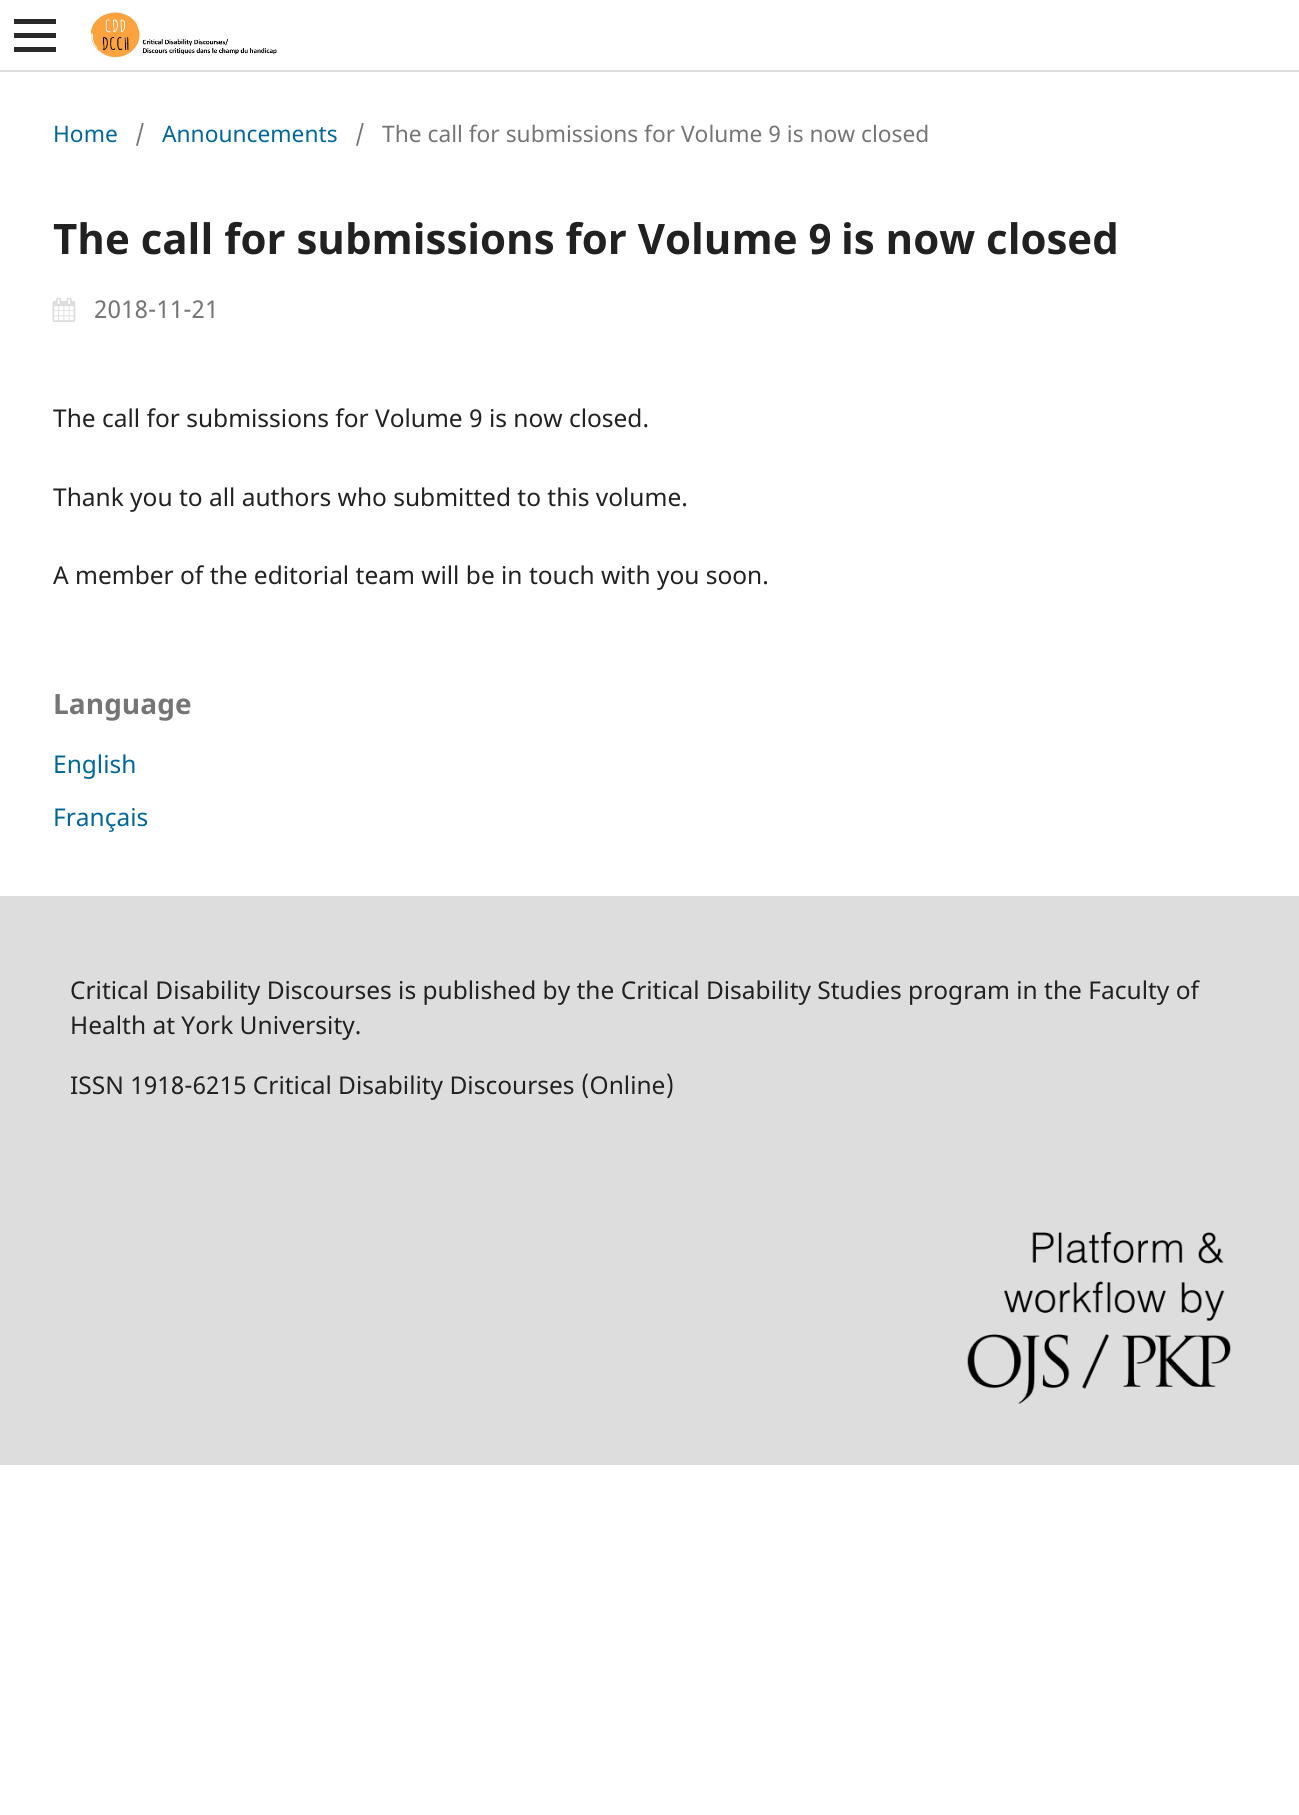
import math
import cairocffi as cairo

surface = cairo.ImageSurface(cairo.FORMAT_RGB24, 1299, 1815)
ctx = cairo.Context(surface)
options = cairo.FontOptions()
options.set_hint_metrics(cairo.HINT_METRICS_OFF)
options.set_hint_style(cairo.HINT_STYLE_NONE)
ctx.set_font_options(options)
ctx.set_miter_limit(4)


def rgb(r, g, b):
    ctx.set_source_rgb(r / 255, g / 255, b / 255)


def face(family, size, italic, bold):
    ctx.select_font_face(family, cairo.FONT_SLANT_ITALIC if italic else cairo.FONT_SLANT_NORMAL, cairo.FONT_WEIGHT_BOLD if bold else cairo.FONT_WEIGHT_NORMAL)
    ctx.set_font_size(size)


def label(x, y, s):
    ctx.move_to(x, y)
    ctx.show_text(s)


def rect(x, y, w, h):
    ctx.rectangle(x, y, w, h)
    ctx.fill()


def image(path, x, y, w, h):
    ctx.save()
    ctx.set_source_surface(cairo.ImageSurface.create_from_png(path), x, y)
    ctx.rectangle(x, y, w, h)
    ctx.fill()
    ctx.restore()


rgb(255, 255, 255)
ctx.paint()
rgb(221, 221, 221)
rect(0, 70, 1299, 2)
rgb(41, 41, 41)
rect(14, 47, 42, 5)
rect(14, 19, 42, 5)
rect(14, 33, 42, 5)
image('image0.png', 90, 11, 187, 47)
face('Noto Sans', 22.75, 0, 0)
rgb(0, 103, 152)
label(53, 142, 'Home')
rgb(117, 117, 117)
label(135, 142, '/')
rgb(0, 103, 152)
label(162, 142, 'Announcements')
rgb(117, 117, 117)
label(355, 142, '/')
label(382, 142, 'The call for submissions for Volume 9 is now closed')
face('Noto Sans', 42, 0, 1)
rgb(33, 33, 33)
label(53, 254, 'The call for submissions for Volume 9')
label(841, 254, 'is now closed')
image('image1.png', 52, 297, 24, 25)
face('Noto Sans', 24.5, 0, 0)
rgb(117, 117, 117)
label(94, 318, '2018-11-21')
rgb(33, 33, 33)
label(53, 427, 'The call for submissions for Volume 9 is now closed.')
label(53, 506, 'Thank you to all authors who submitted to this volume.')
label(53, 584, 'A member of the editorial team will be in touch with you soon.')
face('Noto Sans', 28, 0, 1)
rgb(117, 117, 117)
label(53, 714, 'Language')
face('Noto Sans', 24.5, 0, 0)
rgb(0, 103, 152)
label(53, 773, 'English')
label(53, 826, 'Français')
rgb(221, 221, 221)
rect(0, 896, 1299, 569)
rgb(33, 33, 33)
label(70, 999, 'Critical Disability Discourses is published by the Critical Disability Studies program in the Faculty of')
label(70, 1034, 'Health at York University.')
label(70, 1094, 'ISSN 1918-6215 Critical Disability Discourses (Online)')
image('image2.png', 967, 1232, 264, 172)
surface.write_to_png('render.png')
